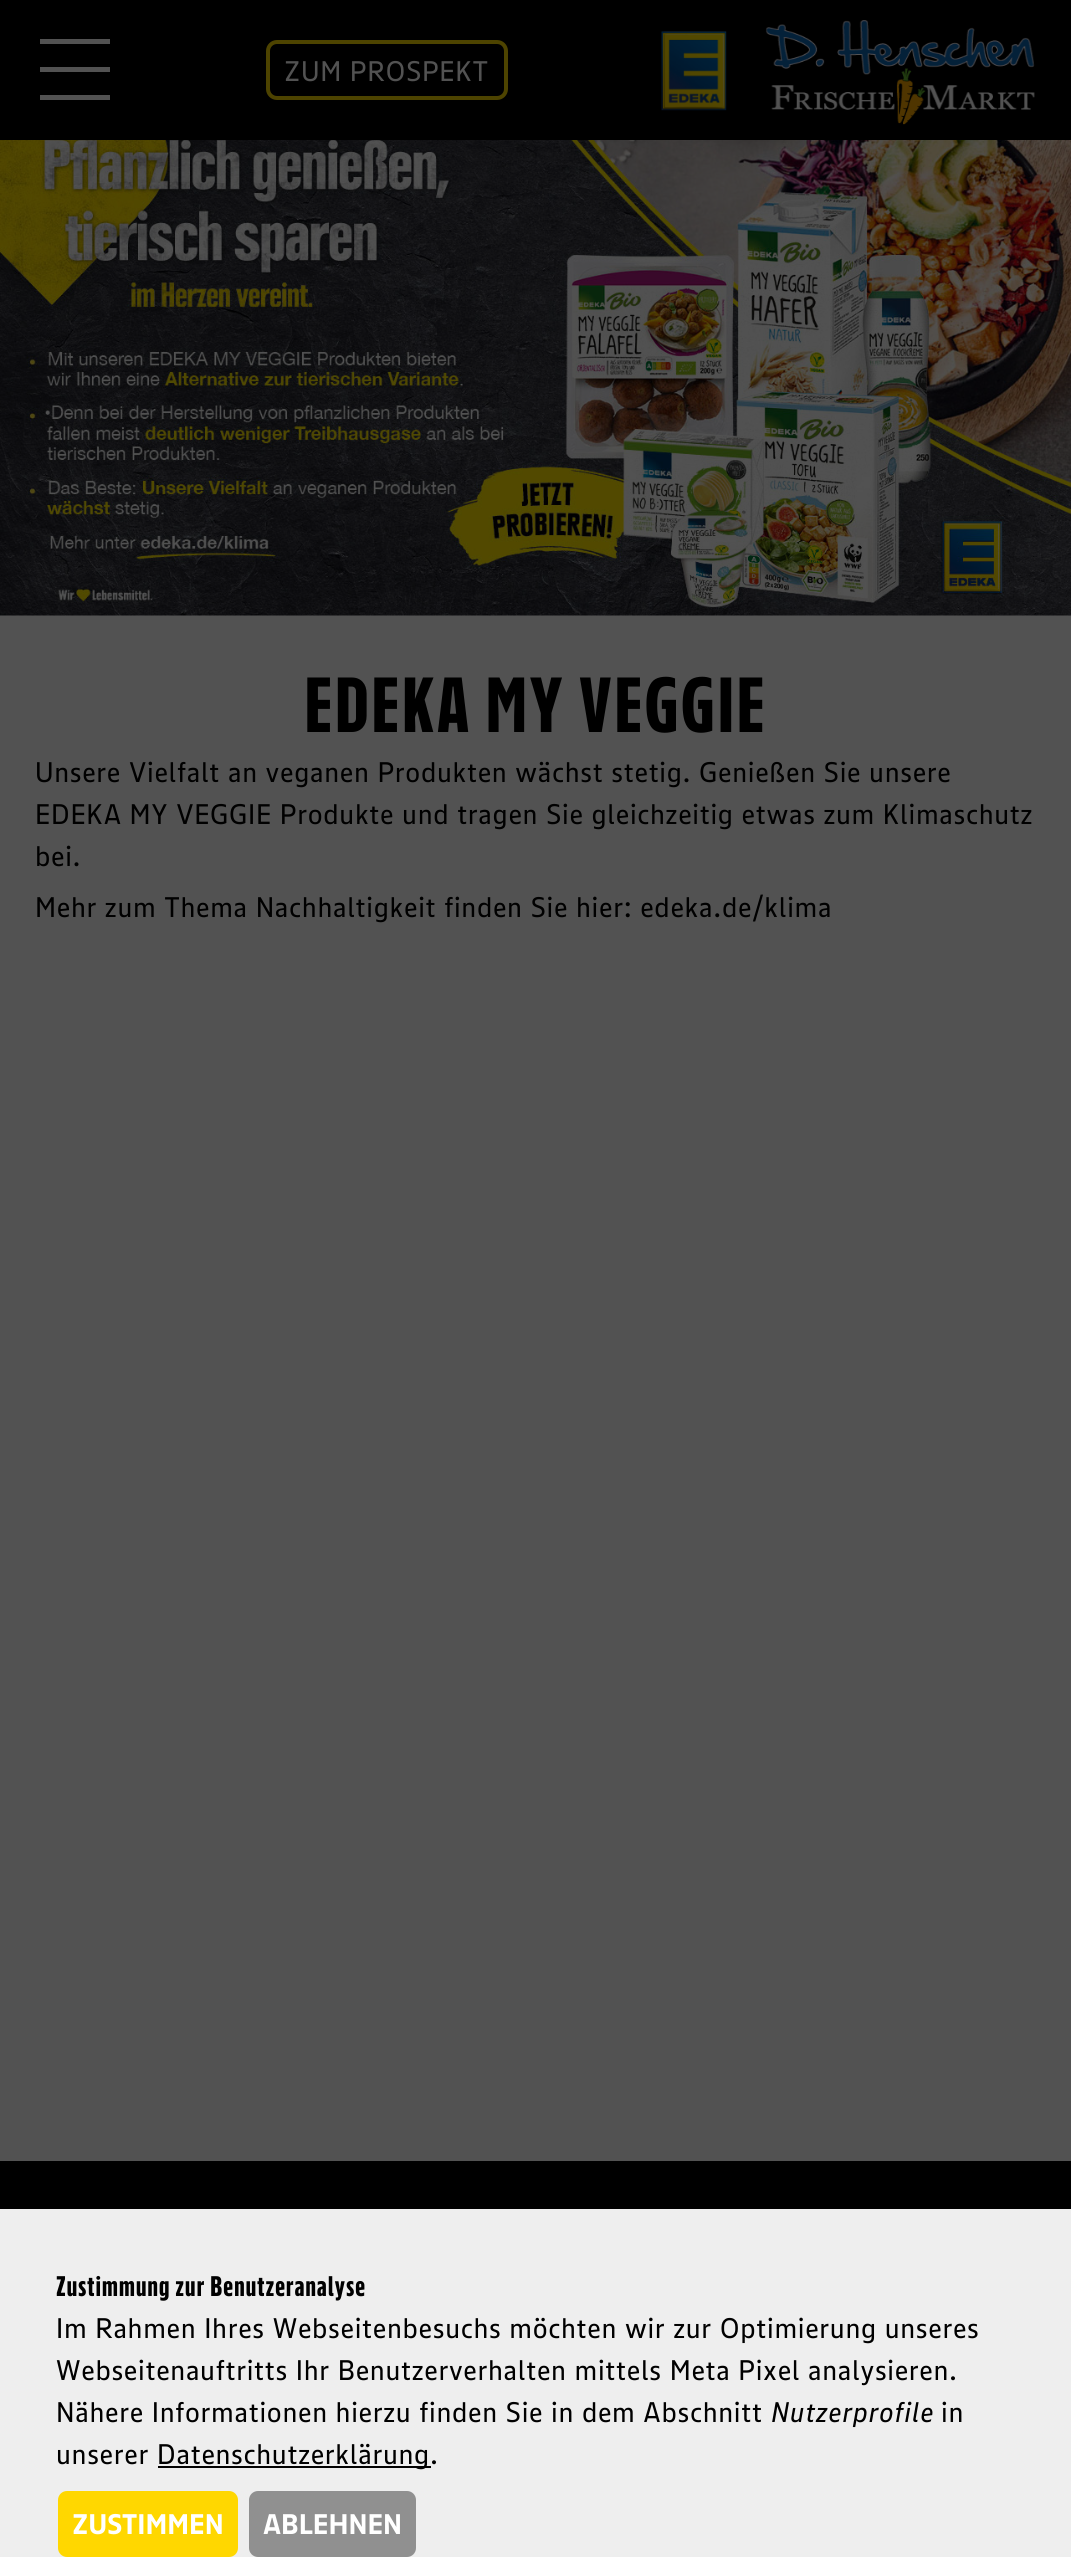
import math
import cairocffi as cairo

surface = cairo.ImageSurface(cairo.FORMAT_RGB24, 1071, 2557)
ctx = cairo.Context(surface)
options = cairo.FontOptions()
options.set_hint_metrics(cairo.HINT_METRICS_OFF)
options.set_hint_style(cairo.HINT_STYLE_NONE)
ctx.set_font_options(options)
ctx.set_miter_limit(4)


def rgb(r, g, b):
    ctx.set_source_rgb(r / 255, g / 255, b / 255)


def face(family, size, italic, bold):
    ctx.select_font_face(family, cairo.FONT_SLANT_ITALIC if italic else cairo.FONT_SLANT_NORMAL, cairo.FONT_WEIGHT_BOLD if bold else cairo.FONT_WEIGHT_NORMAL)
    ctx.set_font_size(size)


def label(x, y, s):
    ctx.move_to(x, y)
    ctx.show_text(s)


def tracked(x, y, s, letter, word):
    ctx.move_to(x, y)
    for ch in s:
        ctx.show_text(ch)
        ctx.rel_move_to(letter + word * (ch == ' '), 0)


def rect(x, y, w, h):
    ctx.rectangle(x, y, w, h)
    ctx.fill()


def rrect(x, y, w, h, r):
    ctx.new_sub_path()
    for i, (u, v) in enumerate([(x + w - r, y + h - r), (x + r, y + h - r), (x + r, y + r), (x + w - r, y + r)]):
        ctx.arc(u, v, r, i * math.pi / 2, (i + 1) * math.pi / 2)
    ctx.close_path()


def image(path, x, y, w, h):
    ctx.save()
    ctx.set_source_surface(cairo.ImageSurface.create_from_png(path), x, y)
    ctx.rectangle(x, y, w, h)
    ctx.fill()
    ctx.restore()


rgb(82, 82, 82)
ctx.paint()
rgb(0, 0, 0)
rect(0, 0, 1071, 140)
rgb(82, 82, 82)
rect(40, 39, 70, 5)
rect(40, 67, 70, 5)
rect(40, 95, 70, 5)
rrect(268, 42, 238, 56, 9)
rgb(77, 67, 0)
ctx.set_line_width(4)
ctx.stroke()
face('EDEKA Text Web', 28, 0, 0)
rgb(82, 82, 82)
tracked(284, 81, 'ZUM PROSPEKT', 0.7, 0)
image('image0.png', 661, 31, 66, 80)
image('image1.png', 765, 20, 270, 105)
image('image2.png', 0, 140, 1071, 476)
face('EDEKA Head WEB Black', 77, 0, 0)
rgb(0, 0, 0)
tracked(304, 732, 'EDEKA MY VEGGIE', 1.9, 0)
face('EDEKA Text Web', 28, 0, 0)
tracked(35, 782, 'Unsere Vielfalt an veganen Produkten wächst stetig. Genießen Sie unsere', 0.7, 0)
tracked(35, 824, 'EDEKA MY VEGGIE Produkte und tragen Sie gleichzeitig etwas zum Klimaschutz', 0.7, 0)
tracked(35, 866, 'bei.', 0.7, 0)
tracked(35, 917, 'Mehr zum Thema Nachhaltigkeit finden Sie hier: edeka.de/klima', 0.7, 0)
rect(0, 2161, 1071, 48)
rgb(238, 238, 238)
rect(0, 2209, 1071, 348)
face('EDEKA Head WEB Black', 28, 0, 0)
rgb(0, 0, 0)
tracked(56, 2296, 'Zustimmung zur Benutzeranalyse', 0.7, 0)
face('EDEKA Text Web', 28, 0, 0)
tracked(56, 2338, 'Im Rahmen Ihres Webseitenbesuchs möchten wir zur Optimierung unseres', 0.7, 0)
tracked(56, 2380, 'Webseitenauftritts Ihr Benutzerverhalten mittels Meta Pixel analysieren.', 0.7, 0)
tracked(56, 2422, 'Nähere Informationen hierzu finden Sie in dem Abschnitt', 0.7, 0)
face('EDEKA Text Web', 28, 1, 0)
tracked(771, 2422, 'Nutzerprofile', 0.7, 0)
face('EDEKA Text Web', 28, 0, 0)
tracked(941, 2422, 'in', 0.7, 0)
tracked(56, 2464, 'unserer', 0.7, 0)
rgb(2, 2, 2)
rect(158, 2466, 273, 2)
rgb(0, 0, 0)
tracked(157, 2464, 'Datenschutzerklärung.', 0.7, 0)
rgb(255, 215, 0)
rrect(57, 2490, 182, 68, 10)
ctx.fill_preserve()
rgb(238, 238, 238)
ctx.set_line_width(2)
ctx.stroke()
face('EDEKA Text Web', 28, 0, 1)
rgb(255, 255, 255)
label(72, 2534, 'ZUSTIMMEN')
rgb(144, 144, 144)
rrect(248, 2490, 169, 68, 10)
ctx.fill_preserve()
rgb(238, 238, 238)
ctx.stroke()
rgb(255, 255, 255)
label(263, 2534, 'ABLEHNEN')
surface.write_to_png('render.png')
